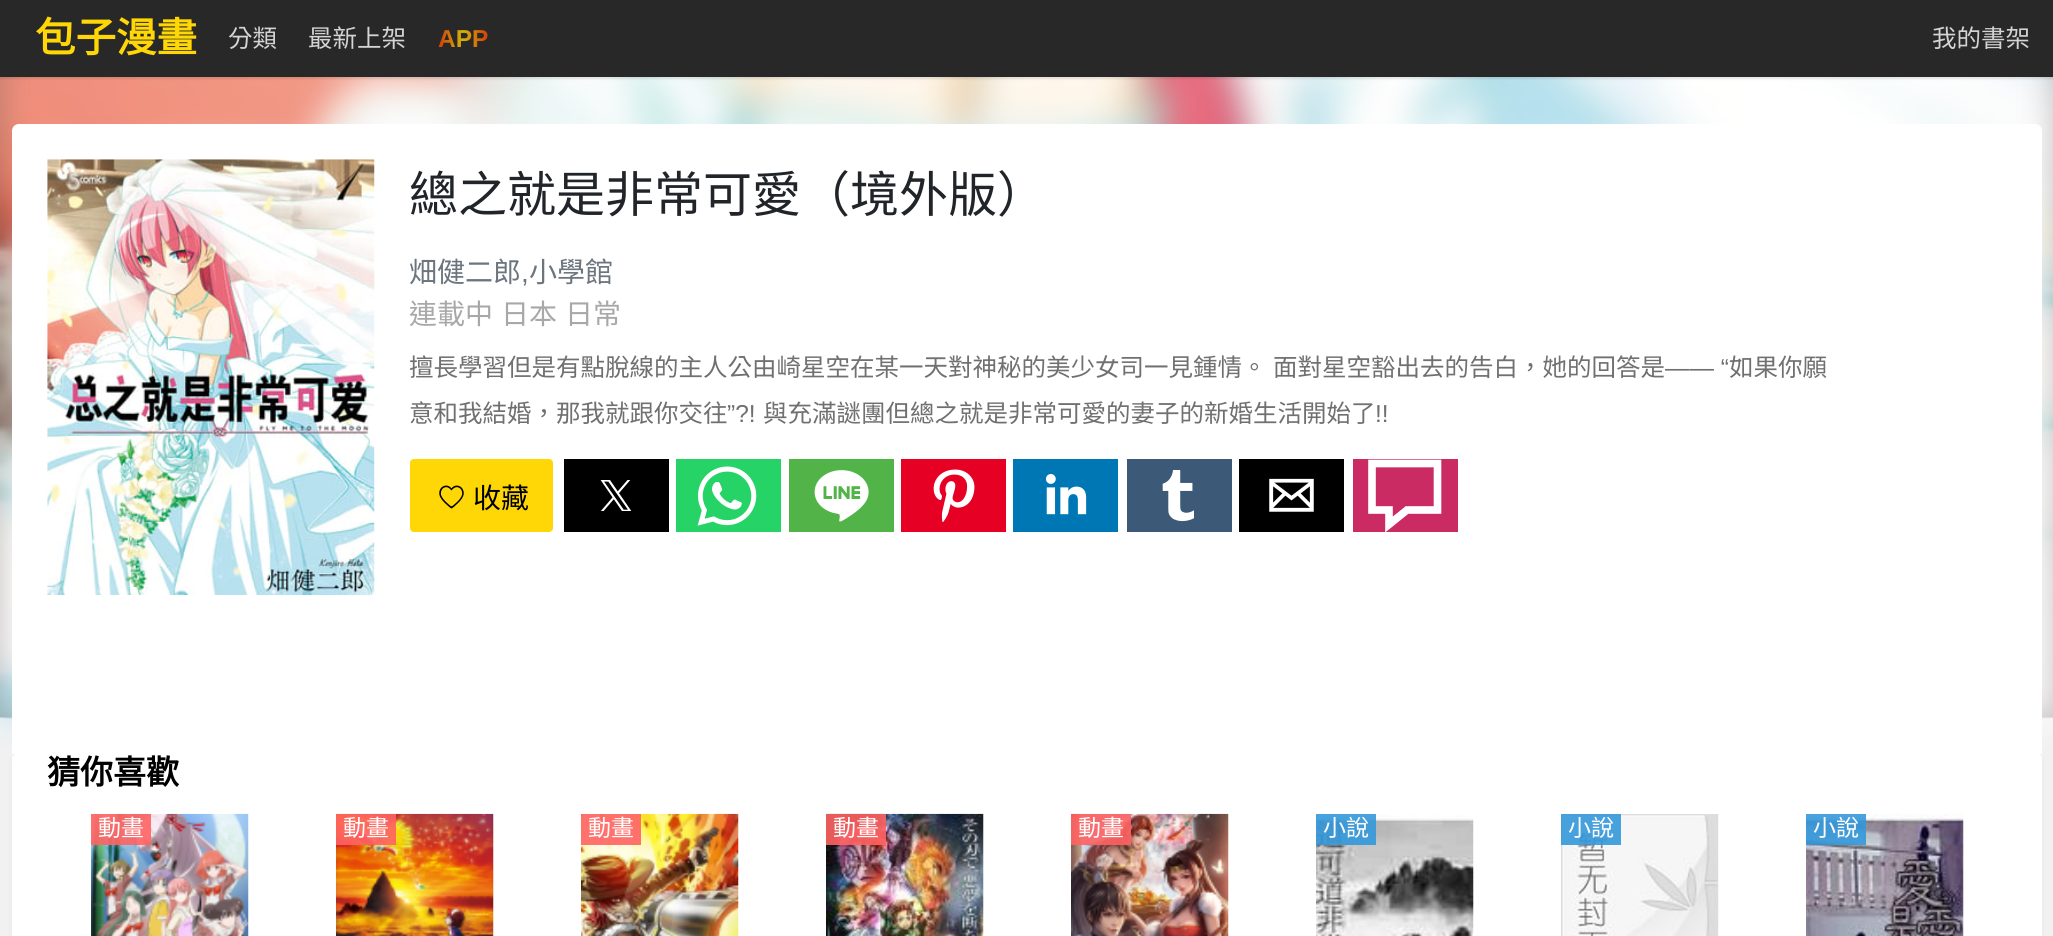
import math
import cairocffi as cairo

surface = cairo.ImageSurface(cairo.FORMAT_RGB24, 2053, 936)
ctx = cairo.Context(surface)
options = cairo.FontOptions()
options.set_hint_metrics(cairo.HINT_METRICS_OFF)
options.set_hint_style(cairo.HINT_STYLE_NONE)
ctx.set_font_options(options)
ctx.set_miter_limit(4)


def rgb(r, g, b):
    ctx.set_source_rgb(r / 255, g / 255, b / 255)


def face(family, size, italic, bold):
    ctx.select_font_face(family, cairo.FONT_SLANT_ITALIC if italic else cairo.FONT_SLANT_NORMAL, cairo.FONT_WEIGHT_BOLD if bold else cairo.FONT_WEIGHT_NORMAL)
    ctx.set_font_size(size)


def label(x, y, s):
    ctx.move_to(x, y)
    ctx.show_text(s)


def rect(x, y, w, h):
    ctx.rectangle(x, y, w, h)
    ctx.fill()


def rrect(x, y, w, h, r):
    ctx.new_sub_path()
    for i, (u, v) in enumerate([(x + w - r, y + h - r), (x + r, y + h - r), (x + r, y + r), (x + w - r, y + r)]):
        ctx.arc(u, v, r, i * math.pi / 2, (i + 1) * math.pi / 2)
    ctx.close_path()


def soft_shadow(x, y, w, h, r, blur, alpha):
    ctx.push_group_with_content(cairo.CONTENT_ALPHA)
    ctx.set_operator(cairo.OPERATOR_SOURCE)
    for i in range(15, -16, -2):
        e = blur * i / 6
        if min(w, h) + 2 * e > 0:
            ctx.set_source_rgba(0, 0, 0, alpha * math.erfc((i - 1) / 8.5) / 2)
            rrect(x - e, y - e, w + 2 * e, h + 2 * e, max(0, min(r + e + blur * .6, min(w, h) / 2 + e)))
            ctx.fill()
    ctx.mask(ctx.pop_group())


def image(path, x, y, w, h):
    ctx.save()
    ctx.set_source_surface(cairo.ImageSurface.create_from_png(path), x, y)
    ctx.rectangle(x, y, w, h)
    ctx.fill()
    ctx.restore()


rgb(241, 241, 241)
ctx.paint()
image('image0.png', 0, 77, 2053, 642)
image('image11.png', 0, 717, 2053, 20)
rgb(106, 115, 133)
soft_shadow(12, 756, 2030, 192, 4, 2.5, 0.08)
image('image1.png', 0, 77, 2053, 671)
rgb(0, 0, 0)
soft_shadow(0, 2, 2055, 77, 0, 1, 0.1)
rgb(40, 40, 40)
rect(0, 0, 2053, 77)
face('Noto Sans CJK TC', 40.5, 0, 1)
rgb(255, 215, 6)
label(35, 52, '包子漫畫')
face('Noto Sans CJK TC', 24.5, 0, 0)
rgb(212, 212, 212)
label(228, 47, '分類')
label(308, 47, '最新上架')
face('Liberation Sans', 24.5, 0, 1)
gradient = cairo.LinearGradient(427, 39, 499, 39)
gradient.add_color_stop_rgba(0, 0.831, 0.031, 0.031, 1)
gradient.add_color_stop_rgba(0.5, 0.831, 0.706, 0.031, 1)
gradient.add_color_stop_rgba(1, 0.831, 0.031, 0.031, 1)
ctx.set_source(gradient)
label(438, 47, 'APP')
face('Noto Sans CJK TC', 24.5, 0, 0)
rgb(212, 212, 212)
label(1932, 47, '我的書架')
rgb(255, 255, 255)
ctx.new_path()
ctx.move_to(19, 124)
ctx.line_to(2035, 124)
ctx.curve_to(2039, 124, 2042, 127, 2042, 131)
ctx.line_to(2042, 754)
ctx.line_to(12, 754)
ctx.line_to(12, 131)
ctx.curve_to(12, 127, 15, 124, 19, 124)
ctx.close_path()
ctx.fill()
image('image2.png', 47, 159, 328, 436)
face('Noto Sans CJK TC', 49, 0, 0)
rgb(33, 37, 41)
label(409, 212, '總之就是非常可愛（境外版）')
face('Noto Sans CJK TC', 28, 0, 0)
rgb(108, 117, 125)
label(409, 282, '畑健二郎')
face('Liberation Sans', 28, 0, 0)
label(521, 282, ',')
face('Noto Sans CJK TC', 28, 0, 0)
label(529, 282, '小學館')
rgb(168, 168, 168)
label(409, 324, '連載中')
label(501, 324, '日本')
label(565, 324, '日常')
face('Noto Sans CJK TC', 24.5, 0, 0)
rgb(112, 112, 112)
label(409, 376, '擅長學習但是有點脫線的主人公由崎星空在某一天對神秘的美少女司一見鍾情。')
label(1273, 376, '面對星空豁出去的告白，她的回答是')
face('Liberation Sans', 24.5, 0, 0)
label(1665, 376, '—— “')
face('Noto Sans CJK TC', 24.5, 0, 0)
label(1729, 376, '如果你願')
label(409, 422, '意和我結婚，那我就跟你交往')
face('Liberation Sans', 24.5, 0, 0)
label(727, 422, '”?!')
face('Noto Sans CJK TC', 24.5, 0, 0)
label(763, 422, '與充滿謎團但總之就是非常可愛的妻子的新婚生活開始了')
face('Liberation Sans', 24.5, 0, 0)
label(1375, 422, '!!')
rgb(255, 215, 6)
rrect(410, 459, 143, 73, 4)
ctx.fill()
image('image3.png', 439, 485, 25, 24)
face('Noto Sans CJK TC', 28, 0, 0)
rgb(0, 0, 0)
label(473, 508, '收藏')
rect(564, 459, 105, 73)
image('image4.png', 600, 480, 32, 31)
rgb(37, 211, 102)
rect(676, 459, 105, 73)
image('image5.png', 697, 466, 60, 60)
rgb(82, 180, 72)
rect(789, 459, 105, 73)
image('image6.png', 814, 470, 55, 52)
rgb(230, 0, 35)
rect(901, 459, 105, 73)
image('image7.png', 933, 469, 42, 54)
rgb(0, 119, 181)
rect(1013, 459, 105, 73)
image('image8.png', 1045, 474, 42, 41)
rgb(60, 90, 119)
rect(1127, 459, 105, 73)
image('image9.png', 1162, 470, 32, 52)
rgb(0, 0, 0)
rect(1239, 459, 105, 73)
image('image10.png', 1269, 478, 45, 34)
rgb(202, 43, 99)
rect(1353, 459, 105, 73)
ctx.new_path()
ctx.move_to(1389, 524.5)
ctx.line_to(1389, 510)
ctx.line_to(1372, 510)
ctx.line_to(1372, 463.5)
ctx.line_to(1437.5, 463.5)
ctx.line_to(1437.5, 510)
ctx.line_to(1407, 510)
ctx.close_path()
rgb(255, 255, 255)
ctx.set_line_width(7.6)
ctx.stroke()
rrect(12, 754, 2030, 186, 4)
ctx.fill()
face('Noto Sans CJK TC', 33, 0, 1)
rgb(0, 0, 0)
label(47, 784, '猜你喜歡')
image('image12.png', 91, 813, 158, 123)
ctx.set_source_rgba(1, 0.388, 0.388, 0.9)
rect(91, 814, 60, 31)
face('Noto Sans CJK TC', 23, 0, 0)
rgb(255, 255, 255)
label(98, 836, '動畫')
image('image13.png', 336, 813, 158, 123)
ctx.set_source_rgba(1, 0.388, 0.388, 0.9)
rect(336, 814, 60, 31)
rgb(255, 255, 255)
label(343, 836, '動畫')
image('image14.png', 581, 813, 158, 123)
ctx.set_source_rgba(1, 0.388, 0.388, 0.9)
rect(581, 814, 60, 31)
rgb(255, 255, 255)
label(588, 836, '動畫')
image('image15.png', 826, 813, 158, 123)
ctx.set_source_rgba(1, 0.388, 0.388, 0.9)
rect(826, 814, 60, 31)
rgb(255, 255, 255)
label(833, 836, '動畫')
image('image16.png', 1071, 813, 158, 123)
ctx.set_source_rgba(1, 0.388, 0.388, 0.9)
rect(1071, 814, 60, 31)
rgb(255, 255, 255)
label(1078, 836, '動畫')
image('image17.png', 1316, 814, 158, 122)
ctx.set_source_rgba(0.204, 0.596, 0.859, 0.9)
rect(1316, 814, 60, 31)
rgb(255, 255, 255)
label(1323, 836, '小說')
image('image18.png', 1561, 814, 158, 122)
ctx.set_source_rgba(0.204, 0.596, 0.859, 0.9)
rect(1561, 814, 60, 31)
rgb(255, 255, 255)
label(1568, 836, '小說')
image('image19.png', 1806, 814, 158, 122)
ctx.set_source_rgba(0.204, 0.596, 0.859, 0.9)
rect(1806, 814, 60, 31)
rgb(255, 255, 255)
label(1813, 836, '小說')
surface.write_to_png('render.png')
